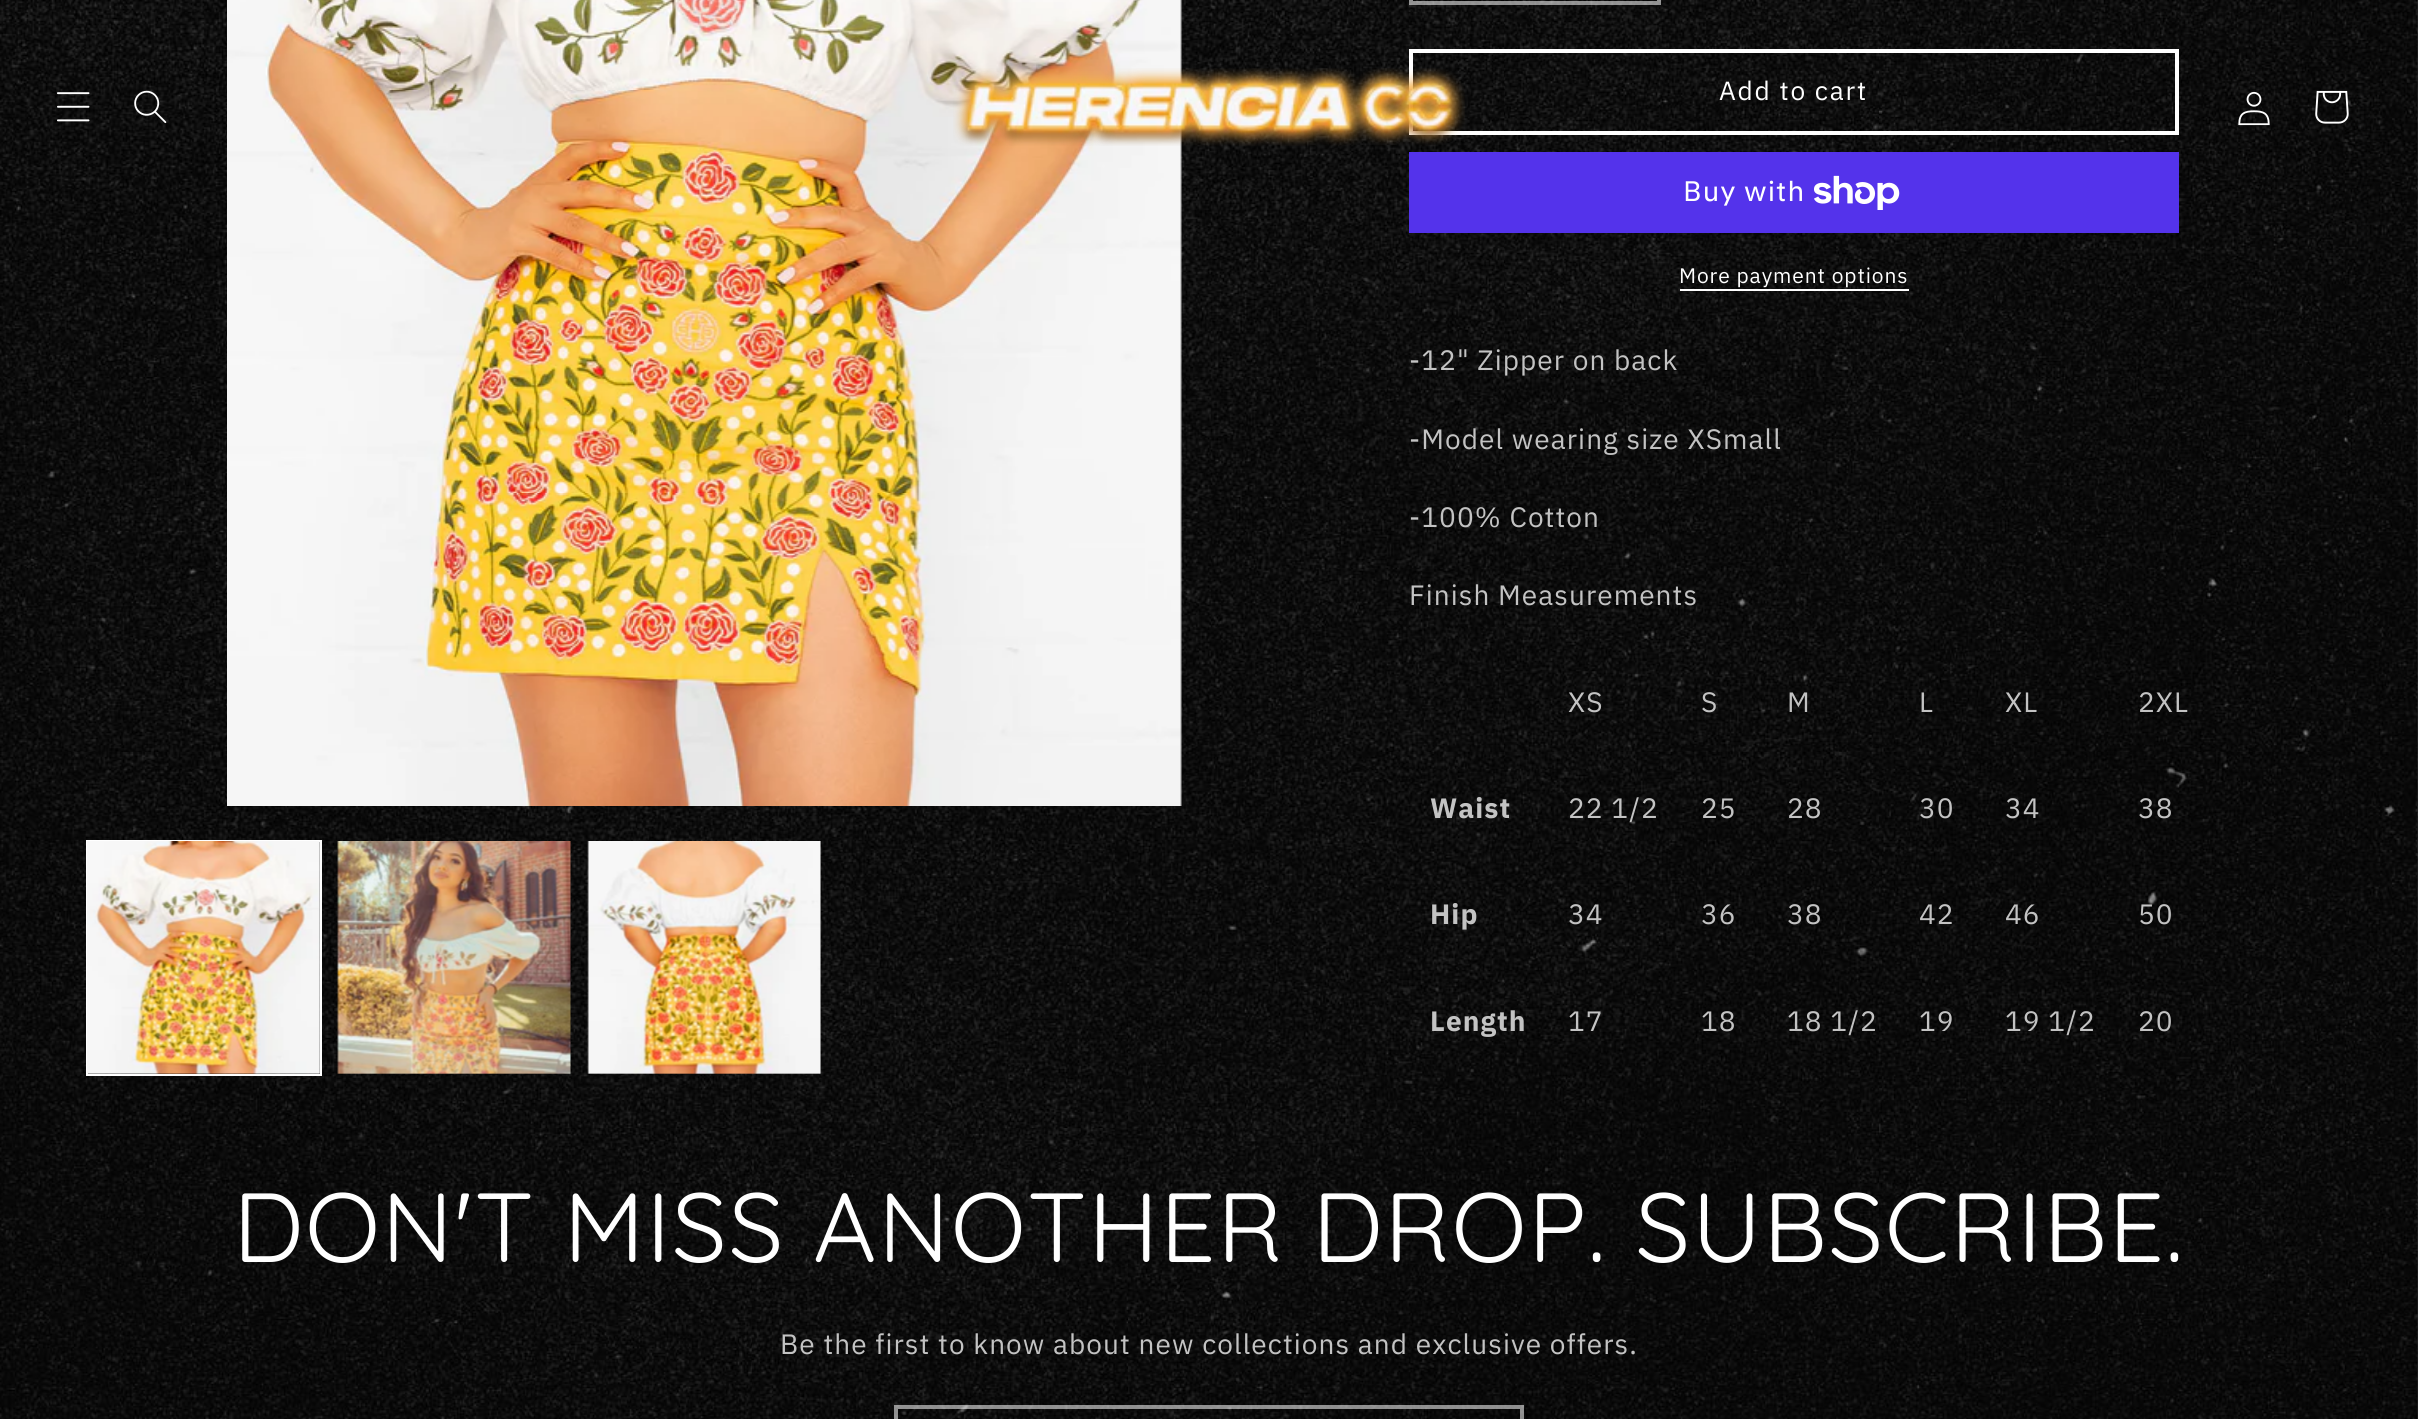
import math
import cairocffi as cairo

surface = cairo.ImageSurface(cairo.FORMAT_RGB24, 2418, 1419)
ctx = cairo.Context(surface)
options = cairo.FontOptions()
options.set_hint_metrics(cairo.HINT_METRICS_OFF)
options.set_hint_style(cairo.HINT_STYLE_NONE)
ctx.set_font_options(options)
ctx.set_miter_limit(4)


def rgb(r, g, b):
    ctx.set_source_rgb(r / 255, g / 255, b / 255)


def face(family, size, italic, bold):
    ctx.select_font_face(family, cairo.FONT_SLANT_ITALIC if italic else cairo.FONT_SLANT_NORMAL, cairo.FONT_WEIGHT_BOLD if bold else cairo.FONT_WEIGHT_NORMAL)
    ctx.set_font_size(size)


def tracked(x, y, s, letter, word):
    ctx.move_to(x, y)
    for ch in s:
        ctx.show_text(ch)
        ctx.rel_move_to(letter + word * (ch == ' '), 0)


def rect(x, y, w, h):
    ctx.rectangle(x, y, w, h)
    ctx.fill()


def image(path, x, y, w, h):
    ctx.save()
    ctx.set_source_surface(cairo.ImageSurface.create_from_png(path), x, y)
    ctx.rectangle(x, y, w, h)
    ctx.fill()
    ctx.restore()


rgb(255, 255, 255)
ctx.paint()
image('image0.png', 0, 0, 2418, 1419)
image('image1.png', 57, 92, 33, 30)
image('image2.png', 134, 90, 33, 34)
image('image6.png', 227, 0, 955, 806)
ctx.rectangle(1411, 51, 766, 82)
rgb(255, 255, 255)
ctx.set_line_width(4)
ctx.stroke()
image('image3.png', 953, 68, 512, 78)
image('image4.png', 2238, 91, 32, 35)
image('image5.png', 2315, 90, 34, 34)
ctx.rectangle(87, 841, 234, 234)
ctx.set_line_width(2)
ctx.stroke()
image('image7.png', 87, 841, 233, 233)
image('image8.png', 337, 841, 234, 233)
image('image9.png', 587, 841, 234, 233)
ctx.rectangle(1411, -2, 248, 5)
ctx.set_source_rgba(1, 1, 1, 0.55)
ctx.set_line_width(4)
ctx.stroke()
face('IBM Plex Sans', 26.25, 0, 0)
rgb(255, 255, 255)
tracked(1719, 100, 'Add to cart', 1.75, 0)
rgb(84, 51, 235)
rect(1409, 152, 770, 81)
face('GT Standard', 28, 0, 0)
rgb(255, 255, 255)
tracked(1683, 201, 'Buy with', 1.05, 0)
image('image10.png', 1814, 175, 86, 35)
face('IBM Plex Sans', 21, 0, 0)
tracked(1679, 283, 'More payment options', 0.9, 0)
rect(1680, 289, 229, 2)
face('IBM Plex Sans', 28, 0, 0)
rgb(195, 195, 195)
tracked(1409, 370, '-12" Zipper on back', 1.05, 0)
tracked(1409, 449, '-Model wearing size XSmall', 1.05, 0)
tracked(1409, 527, '-100% Cotton', 1.05, 0)
tracked(1409, 605, 'Finish Measurements', 1.05, 0)
tracked(1568, 712, 'XS', 1.05, 0)
tracked(1701, 712, 'S', 1.05, 0)
tracked(1787, 712, 'M', 1.05, 0)
tracked(1919, 712, 'L', 1.05, 0)
tracked(2005, 712, 'XL', 1.05, 0)
tracked(2138, 712, '2XL', 1.05, 0)
face('IBM Plex Sans', 28, 0, 1)
tracked(1430, 818, 'Waist', 1.05, 0)
face('IBM Plex Sans', 28, 0, 0)
tracked(1568, 818, '22 1/2', 1.05, 0)
tracked(1701, 818, '25', 1.05, 0)
tracked(1787, 818, '28', 1.05, 0)
tracked(1919, 818, '30', 1.05, 0)
tracked(2005, 818, '34', 1.05, 0)
tracked(2138, 818, '38', 1.05, 0)
face('IBM Plex Sans', 28, 0, 1)
tracked(1430, 924, 'Hip', 1.05, 0)
face('IBM Plex Sans', 28, 0, 0)
tracked(1568, 924, '34', 1.05, 0)
tracked(1701, 924, '36', 1.05, 0)
tracked(1787, 924, '38', 1.05, 0)
tracked(1919, 924, '42', 1.05, 0)
tracked(2005, 924, '46', 1.05, 0)
tracked(2138, 924, '50', 1.05, 0)
face('IBM Plex Sans', 28, 0, 1)
tracked(1430, 1031, 'Length', 1.05, 0)
face('IBM Plex Sans', 28, 0, 0)
tracked(1568, 1031, '17', 1.05, 0)
tracked(1701, 1031, '18', 1.05, 0)
tracked(1787, 1031, '18 1/2', 1.05, 0)
tracked(1919, 1031, '19', 1.05, 0)
tracked(2005, 1031, '19 1/2', 1.05, 0)
tracked(2138, 1031, '20', 1.05, 0)
face('Quicksand', 98, 0, 0)
rgb(255, 255, 255)
tracked(233, 1262, 'DON\'T MISS ANOTHER DROP. SUBSCRIBE.', 1.45, 0)
face('IBM Plex Sans', 28, 0, 0)
rgb(195, 195, 195)
tracked(780, 1354, 'Be the first to know about new collections and exclusive offers.', 1.05, 0)
ctx.rectangle(896, 1407, 626, 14)
ctx.set_source_rgba(1, 1, 1, 0.55)
ctx.stroke()
surface.write_to_png('render.png')
